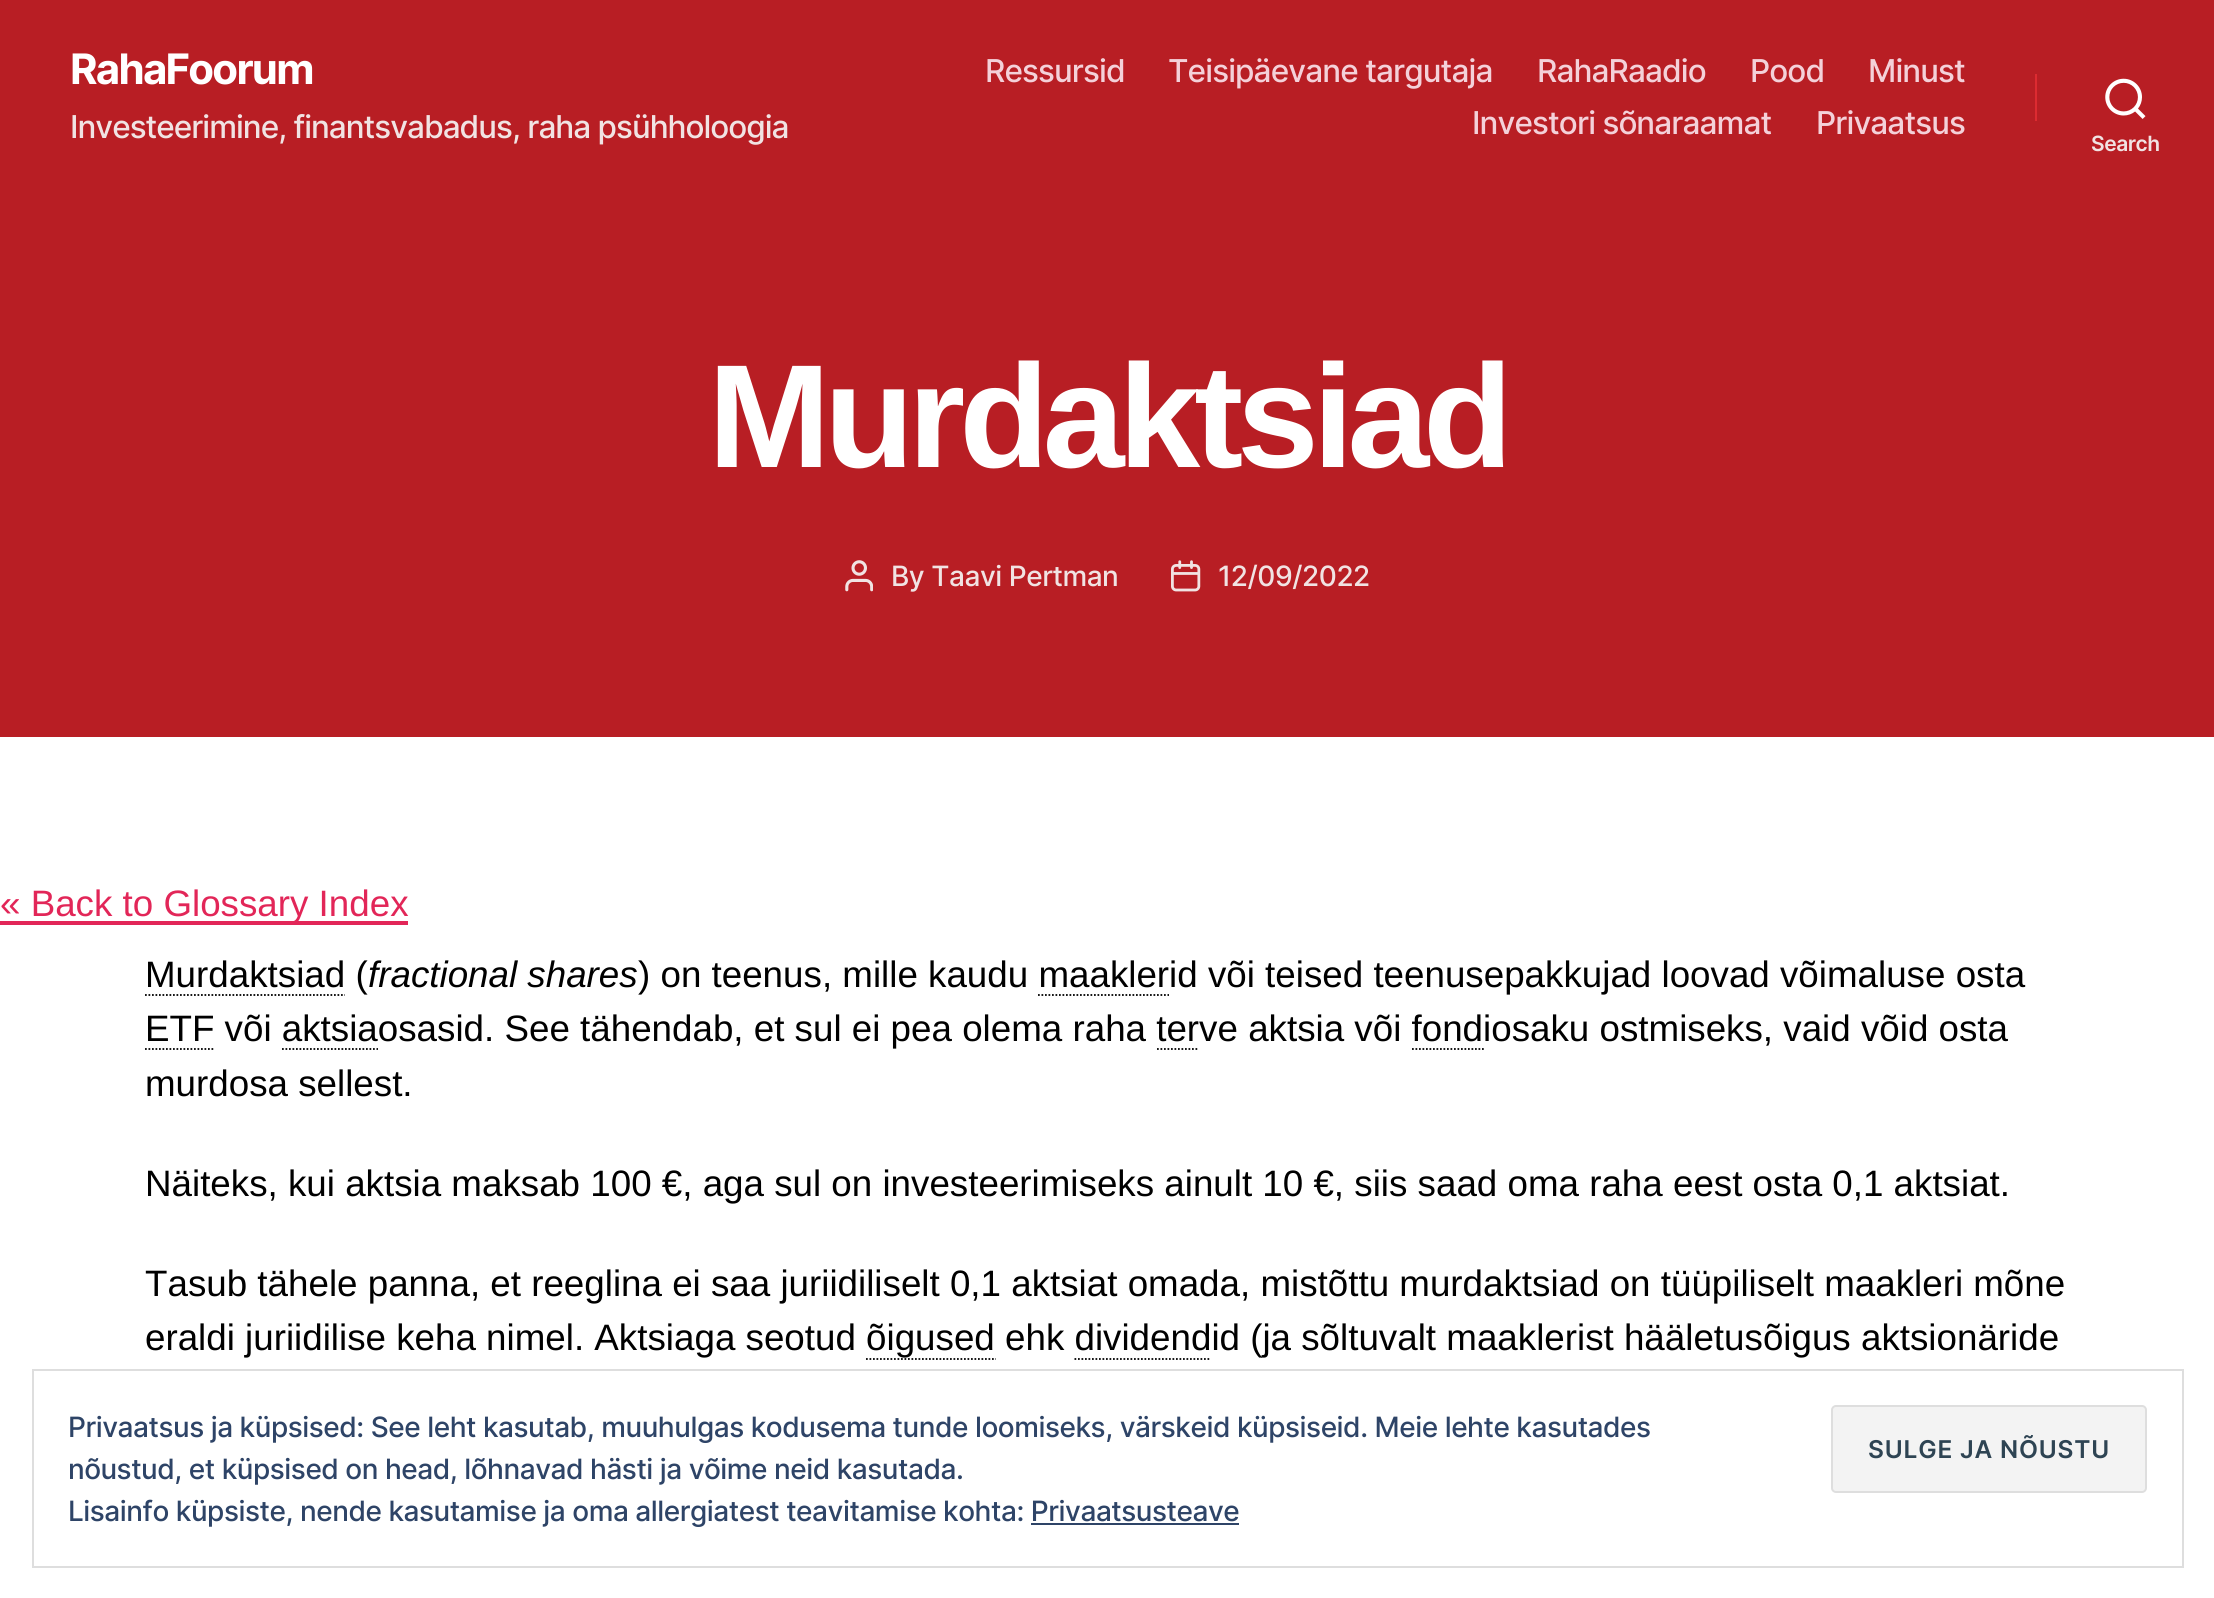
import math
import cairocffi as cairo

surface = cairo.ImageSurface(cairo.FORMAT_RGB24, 2214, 1598)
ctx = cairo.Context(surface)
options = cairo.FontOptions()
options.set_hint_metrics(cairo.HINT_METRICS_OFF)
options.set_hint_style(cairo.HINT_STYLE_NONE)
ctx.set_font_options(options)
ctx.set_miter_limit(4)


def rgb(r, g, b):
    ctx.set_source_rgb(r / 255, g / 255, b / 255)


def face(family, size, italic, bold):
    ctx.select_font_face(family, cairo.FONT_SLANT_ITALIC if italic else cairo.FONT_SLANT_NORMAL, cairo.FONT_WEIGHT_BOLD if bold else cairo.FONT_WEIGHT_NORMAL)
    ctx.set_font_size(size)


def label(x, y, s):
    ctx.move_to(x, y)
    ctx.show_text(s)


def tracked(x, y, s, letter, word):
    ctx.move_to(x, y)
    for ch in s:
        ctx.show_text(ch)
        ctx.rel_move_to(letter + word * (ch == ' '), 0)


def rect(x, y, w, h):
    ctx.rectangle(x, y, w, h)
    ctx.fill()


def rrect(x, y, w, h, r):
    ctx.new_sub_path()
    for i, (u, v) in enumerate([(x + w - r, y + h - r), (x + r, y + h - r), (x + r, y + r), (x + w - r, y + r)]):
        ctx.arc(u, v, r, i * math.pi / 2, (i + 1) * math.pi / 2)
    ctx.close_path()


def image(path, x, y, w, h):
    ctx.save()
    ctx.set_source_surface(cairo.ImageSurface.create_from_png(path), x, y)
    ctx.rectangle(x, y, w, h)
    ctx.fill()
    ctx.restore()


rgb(255, 255, 255)
ctx.paint()
rgb(184, 30, 36)
rect(0, 0, 2214, 737)
face('Inter', 42, 0, 1)
rgb(255, 255, 255)
tracked(70, 84, 'RahaFoorum', -1.75, 0)
face('Inter Medium', 31.5, 0, 0)
rgb(241, 227, 227)
tracked(70, 138, 'Investeerimine, finantsvabadus, raha psühholoogia', -1, 0)
rgb(244, 209, 217)
tracked(985, 82, 'Ressursid', -0.9, 0)
tracked(1168, 82, 'Teisipäevane targutaja', -0.9, 0)
tracked(1537, 82, 'RahaRaadio', -0.9, 0)
tracked(1750, 82, 'Pood', -0.9, 0)
tracked(1868, 82, 'Minust', -0.9, 0)
tracked(1472, 134, 'Investori sõnaraamat', -0.9, 0)
tracked(1816, 134, 'Privaatsus', -0.9, 0)
rgb(221, 43, 49)
rect(2035, 74, 2, 47)
image('image0.png', 2105, 78, 41, 41)
face('Inter SemiBold', 21, 0, 0)
rgb(241, 227, 227)
tracked(2091, 151, 'Search', -0.47, 0)
face('Liberation Sans', 147, 0, 1)
rgb(255, 255, 255)
tracked(708, 467, 'Murdaktsiad', -6.1, 0)
image('image1.png', 845, 560, 28, 32)
face('Inter Medium', 28, 0, 0)
rgb(241, 227, 227)
tracked(891, 586, 'By Taavi Pertman', -0.47, 0)
image('image2.png', 1171, 560, 30, 32)
tracked(1218, 586, '12/09/2022', -0.47, 0)
rgb(226, 38, 88)
rect(0, 921, 408, 4)
face('Liberation Sans', 36.75, 0, 0)
label(0, 916, '« Back to Glossary Index')
ctx.new_path()
ctx.move_to(145, 995)
ctx.line_to(345, 995)
rgb(0, 0, 0)
ctx.set_line_width(1.8)
ctx.set_dash([1.75, 1.75])
ctx.stroke()
label(145, 987, 'Murdaktsiad (')
face('Liberation Sans', 36.75, 1, 0)
label(368, 987, 'fractional shares')
face('Liberation Sans', 36.75, 0, 0)
label(638, 987, ') on teenus, mille kaudu maaklerid või teised teenusepakkujad loovad võimaluse osta')
ctx.new_path()
ctx.move_to(1038, 995)
ctx.line_to(1169, 995)
ctx.stroke()
ctx.new_path()
ctx.move_to(145, 1049)
ctx.line_to(215, 1049)
ctx.stroke()
label(145, 1041, 'ETF või aktsiaosasid. See tähendab, et sul ei pea olema raha terve aktsia või fondiosaku ostmiseks, vaid võid osta')
ctx.new_path()
ctx.move_to(282, 1049)
ctx.line_to(378, 1049)
ctx.stroke()
ctx.new_path()
ctx.move_to(1157, 1049)
ctx.line_to(1199, 1049)
ctx.stroke()
ctx.new_path()
ctx.move_to(1412, 1049)
ctx.line_to(1484, 1049)
ctx.stroke()
label(145, 1096, 'murdosa sellest.')
label(145, 1196, 'Näiteks, kui aktsia maksab 100 €, aga sul on investeerimiseks ainult 10 €, siis saad oma raha eest osta 0,1 aktsiat.')
label(145, 1296, 'Tasub tähele panna, et reeglina ei saa juriidiliselt 0,1 aktsiat omada, mistõttu murdaktsiad on tüüpiliselt maakleri mõne')
label(145, 1350, 'eraldi juriidilise keha nimel. Aktsiaga seotud õigused ehk dividendid (ja sõltuvalt maaklerist hääletusõigus aktsionäride')
ctx.new_path()
ctx.move_to(866, 1359)
ctx.line_to(996, 1359)
ctx.stroke()
ctx.new_path()
ctx.move_to(1074.5, 1359)
ctx.line_to(1211, 1359)
ctx.stroke()
ctx.rectangle(33, 1370, 2150, 197)
rgb(222, 222, 222)
ctx.set_line_width(2)
ctx.set_dash([])
ctx.stroke()
face('Inter Medium', 28, 0, 0)
rgb(46, 68, 103)
tracked(68, 1437, 'Privaatsus ja küpsised: See leht kasutab, muuhulgas kodusema tunde loomiseks, värskeid küpsiseid. Meie lehte kasutades', -0.47, 0)
rgb(243, 243, 243)
rrect(1832, 1406, 314, 86, 4)
ctx.fill_preserve()
rgb(222, 222, 222)
ctx.stroke()
face('Inter SemiBold', 24.5, 0, 0)
rgb(46, 68, 83)
tracked(1868, 1458, 'SULGE JA NÕUSTU', 0.8, 0)
face('Inter Medium', 28, 0, 0)
rgb(46, 68, 103)
tracked(68, 1479, 'nõustud, et küpsised on head, lõhnavad hästi ja võime neid kasutada.', -0.47, 0)
tracked(68, 1521, 'Lisainfo küpsiste, nende kasutamise ja oma allergiatest teavitamise kohta: Privaatsusteave', -0.47, 0)
rect(1031, 1523, 208, 2)
surface.write_to_png('render.png')
